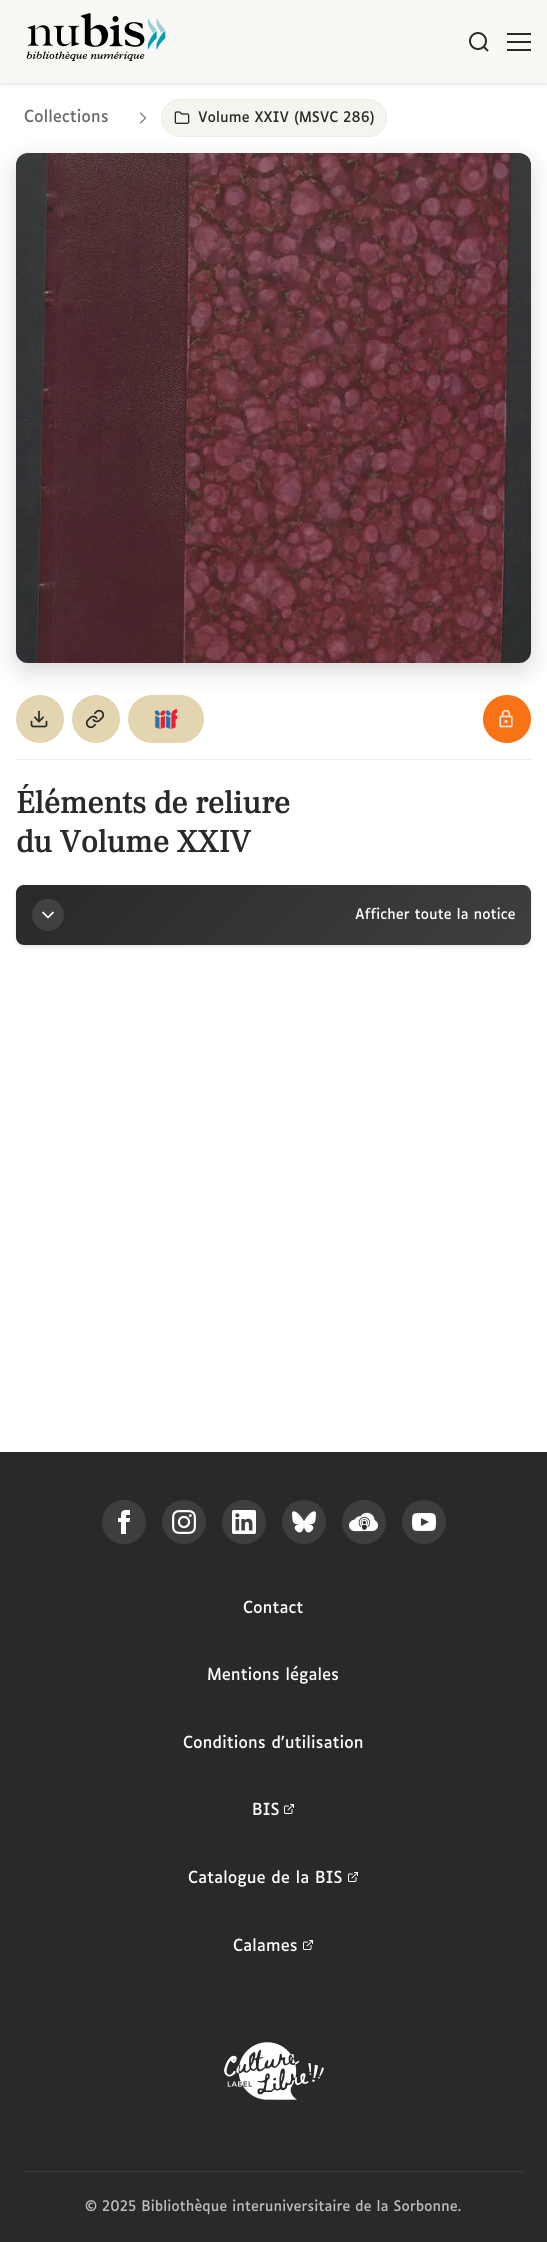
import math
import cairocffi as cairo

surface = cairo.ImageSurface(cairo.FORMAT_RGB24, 547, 2242)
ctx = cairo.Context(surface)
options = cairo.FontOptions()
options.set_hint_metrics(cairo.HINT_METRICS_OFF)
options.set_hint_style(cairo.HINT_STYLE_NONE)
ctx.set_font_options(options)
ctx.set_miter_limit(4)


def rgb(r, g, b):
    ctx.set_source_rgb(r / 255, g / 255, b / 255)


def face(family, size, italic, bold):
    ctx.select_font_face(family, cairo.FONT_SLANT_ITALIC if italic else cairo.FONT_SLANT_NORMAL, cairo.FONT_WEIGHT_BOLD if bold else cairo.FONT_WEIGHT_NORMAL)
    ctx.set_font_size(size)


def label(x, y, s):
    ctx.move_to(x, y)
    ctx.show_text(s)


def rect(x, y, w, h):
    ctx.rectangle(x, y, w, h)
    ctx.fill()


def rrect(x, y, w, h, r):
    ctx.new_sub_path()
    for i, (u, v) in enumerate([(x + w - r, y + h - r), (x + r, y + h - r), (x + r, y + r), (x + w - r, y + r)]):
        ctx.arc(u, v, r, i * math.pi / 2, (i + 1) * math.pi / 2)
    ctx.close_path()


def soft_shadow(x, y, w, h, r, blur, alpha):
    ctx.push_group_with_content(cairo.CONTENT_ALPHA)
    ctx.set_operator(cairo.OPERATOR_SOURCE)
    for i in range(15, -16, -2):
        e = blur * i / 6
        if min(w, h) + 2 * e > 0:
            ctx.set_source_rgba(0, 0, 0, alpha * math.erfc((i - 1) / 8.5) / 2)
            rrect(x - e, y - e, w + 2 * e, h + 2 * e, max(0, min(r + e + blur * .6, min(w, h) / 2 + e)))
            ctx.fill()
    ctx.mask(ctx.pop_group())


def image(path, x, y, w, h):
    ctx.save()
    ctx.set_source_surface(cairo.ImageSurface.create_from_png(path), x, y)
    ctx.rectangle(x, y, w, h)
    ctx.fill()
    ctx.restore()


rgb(255, 255, 255)
ctx.paint()
rgb(0, 0, 0)
soft_shadow(0, 2, 547, 83, 0, 2, 0.1)
rgb(249, 248, 245)
rect(0, 0, 547, 83)
image('image0.png', 26, 13, 140, 48)
ctx.arc(478, 41, 8, 0, 2 * math.pi)
rgb(40, 41, 40)
ctx.stroke()
ctx.new_path()
ctx.move_to(488, 51)
ctx.line_to(483.5, 46.5)
ctx.stroke()
rect(507, 33, 24, 2)
rect(507, 41, 24, 2)
rect(507, 49, 24, 2)
image('image1.png', 24, 108, 84, 15)
ctx.new_path()
ctx.move_to(140.5, 123)
ctx.line_to(145.5, 118)
ctx.line_to(140.5, 113)
rgb(120, 119, 119)
ctx.set_line_width(1.2)
ctx.set_line_cap(cairo.LINE_CAP_ROUND)
ctx.set_line_join(cairo.LINE_JOIN_ROUND)
ctx.stroke()
rgb(246, 244, 239)
rrect(161.5, 99.5, 225, 37, 18.5)
ctx.fill_preserve()
rgb(239, 236, 227)
ctx.set_line_width(1)
ctx.set_line_cap(cairo.LINE_CAP_BUTT)
ctx.set_line_join(cairo.LINE_JOIN_MITER)
ctx.stroke()
image('image2.png', 174, 111, 16, 13)
image('image3.png', 198, 110, 176, 16)
rgb(227, 213, 176)
ctx.arc(40, 719, 24, 0, 2 * math.pi)
ctx.fill()
ctx.arc(96, 719, 24, 0, 2 * math.pi)
ctx.fill()
image('image6.png', 85, 709, 20, 20)
rrect(128, 695, 76, 48, 24)
ctx.fill()
image('image7.png', 154, 709, 24, 20)
rgb(249, 115, 22)
ctx.arc(507, 719, 24, 0, 2 * math.pi)
ctx.fill()
image('image8.png', 499, 709, 14, 19)
rgb(0, 0, 0)
soft_shadow(16, 161, 515, 510, 12, 12.5, 0.15)
image('image4.png', 16, 153, 515, 510)
rgb(241, 238, 230)
rect(16, 759, 515, 1)
image('image5.png', 30, 710, 18, 18)
ctx.save()
ctx.rectangle(16, 784, 515, 77)
ctx.clip()
face('Frank Ruhl Libre', 32, 0, 1)
rgb(40, 41, 40)
label(16, 813, 'Éléments de reliure')
ctx.restore()
face('Frank Ruhl Libre', 32, 0, 1)
rgb(40, 41, 40)
label(16, 852, 'du Volume XXIV')
rgb(0, 0, 0)
soft_shadow(16, 887, 515, 60, 8, 2, 0.1)
gradient = cairo.LinearGradient(130, 771, 417, 1059)
gradient.add_color_stop_rgba(0, 0.157, 0.161, 0.157, 1)
gradient.add_color_stop_rgba(1, 0.243, 0.247, 0.243, 1)
ctx.set_source(gradient)
rrect(16, 885, 515, 60, 8)
ctx.fill()
rgb(64, 65, 64)
ctx.arc(48, 915, 16, 0, 2 * math.pi)
ctx.fill()
ctx.new_path()
ctx.move_to(43, 912.5)
ctx.line_to(48, 917.5)
ctx.line_to(53, 912.5)
rgb(255, 255, 255)
ctx.set_line_width(1.7)
ctx.set_line_cap(cairo.LINE_CAP_ROUND)
ctx.set_line_join(cairo.LINE_JOIN_ROUND)
ctx.stroke()
image('image9.png', 355, 907, 160, 13)
rgb(40, 41, 40)
rect(0, 1452, 547, 790)
rgb(62, 62, 62)
ctx.arc(124, 1522, 22, 0, 2 * math.pi)
ctx.fill()
image('image10.png', 118, 1510, 12, 24)
ctx.arc(184, 1522, 22, 0, 2 * math.pi)
ctx.fill()
image('image11.png', 172, 1510, 24, 24)
ctx.arc(244, 1522, 22, 0, 2 * math.pi)
ctx.fill()
image('image12.png', 232, 1510, 24, 24)
ctx.arc(304, 1522, 22, 0, 2 * math.pi)
ctx.fill()
image('image13.png', 292, 1511, 24, 22)
ctx.arc(364, 1522, 22, 0, 2 * math.pi)
ctx.fill()
image('image14.png', 349, 1512, 29, 20)
ctx.arc(424, 1522, 22, 0, 2 * math.pi)
ctx.fill()
image('image15.png', 412, 1513, 24, 18)
image('image16.png', 243, 1600, 60, 14)
image('image17.png', 208, 1665, 130, 19)
image('image18.png', 183, 1734, 180, 15)
image('image19.png', 253, 1802, 26, 14)
image('image20.png', 284, 1804, 10, 10)
image('image21.png', 188, 1870, 154, 17)
image('image20.png', 348, 1872, 10, 10)
image('image22.png', 233, 1938, 64, 14)
image('image20.png', 303, 1940, 10, 10)
image('image23.png', 224, 2042, 100, 58)
rect(24, 2171, 499, 1)
image('image24.png', 85, 2198, 376, 17)
surface.write_to_png('render.png')
